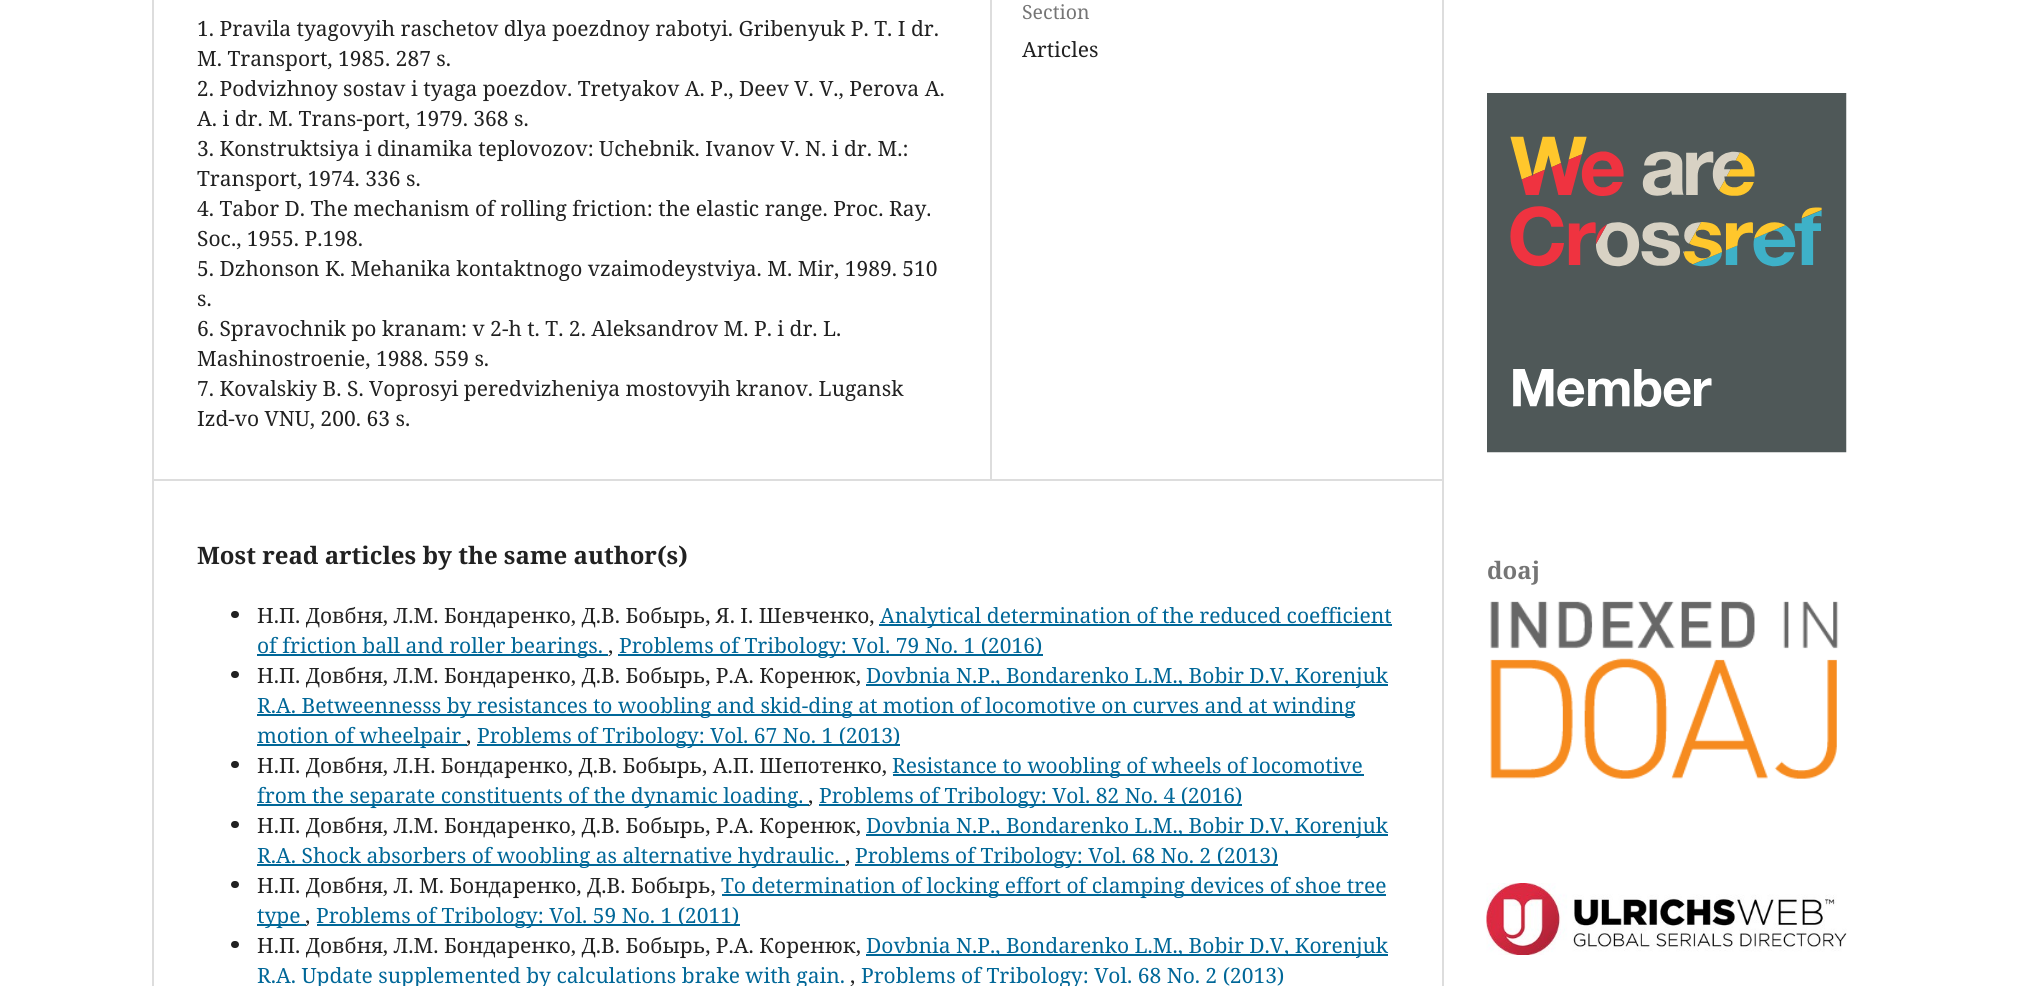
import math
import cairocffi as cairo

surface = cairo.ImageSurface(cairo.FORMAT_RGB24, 2042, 986)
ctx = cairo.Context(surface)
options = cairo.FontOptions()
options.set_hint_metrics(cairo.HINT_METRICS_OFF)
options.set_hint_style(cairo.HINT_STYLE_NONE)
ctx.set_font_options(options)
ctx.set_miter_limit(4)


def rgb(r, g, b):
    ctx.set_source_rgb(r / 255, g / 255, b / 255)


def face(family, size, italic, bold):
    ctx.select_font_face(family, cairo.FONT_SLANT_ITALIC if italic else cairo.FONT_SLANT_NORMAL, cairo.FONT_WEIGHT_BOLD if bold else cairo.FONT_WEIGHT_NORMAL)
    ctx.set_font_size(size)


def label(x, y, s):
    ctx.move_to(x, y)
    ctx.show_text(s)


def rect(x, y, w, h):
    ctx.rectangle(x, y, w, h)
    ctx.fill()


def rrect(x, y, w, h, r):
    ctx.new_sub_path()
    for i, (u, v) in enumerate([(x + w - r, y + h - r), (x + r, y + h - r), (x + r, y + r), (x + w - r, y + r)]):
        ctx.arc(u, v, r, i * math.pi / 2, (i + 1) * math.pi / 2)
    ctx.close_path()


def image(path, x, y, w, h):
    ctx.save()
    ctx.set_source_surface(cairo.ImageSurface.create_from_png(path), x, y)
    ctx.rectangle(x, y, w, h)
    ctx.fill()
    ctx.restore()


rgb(255, 255, 255)
ctx.paint()
rgb(221, 221, 221)
rect(152, 479, 1290, 2)
rect(152, 0, 2, 986)
rect(990, 0, 2, 479)
face('Noto Serif', 21, 0, 0)
rgb(33, 33, 33)
label(197, 36, '1. Pravila tyagovyih raschetov dlya poezdnoy rabotyi. Gribenyuk P. T. I dr.')
label(197, 66, 'M. Transport, 1985. 287 s.')
label(197, 96, '2. Podvizhnoy sostav i tyaga poezdov. Tretyakov A. P., Deev V. V., Perova A.')
label(197, 126, 'A. i dr. M. Trans-port, 1979. 368 s.')
label(197, 156, '3. Konstruktsiya i dinamika teplovozov: Uchebnik. Ivanov V. N. i dr. M.:')
label(197, 186, 'Transport, 1974. 336 s.')
label(197, 216, '4. Tabor D. The mechanism of rolling friction: the elastic range. Proc. Ray.')
label(197, 246, 'Soc., 1955. P.198.')
label(197, 276, '5. Dzhonson K. Mehanika kontaktnogo vzaimodeystviya. M. Mir, 1989. 510')
label(197, 306, 's.')
label(197, 336, '6. Spravochnik po kranam: v 2-h t. T. 2. Aleksandrov M. P. i dr. L.')
label(197, 366, 'Mashinostroenie, 1988. 559 s.')
label(197, 396, '7. Kovalskiy B. S. Voprosyi peredvizheniya mostovyih kranov. Lugansk')
label(197, 426, 'Izd-vo VNU, 200. 63 s.')
face('Noto Serif', 19.5, 0, 0)
rgb(117, 117, 117)
label(1022, 19, 'Section')
face('Noto Serif', 21, 0, 0)
rgb(33, 33, 33)
label(1022, 57, 'Articles')
face('Noto Serif', 24, 0, 1)
label(197, 564, 'Most read articles by the same author(s)')
rrect(231, 611, 8, 7, 3.5)
ctx.fill()
face('Noto Serif', 21, 0, 0)
label(257, 623, 'Н.П. Довбня, Л.М. Бондаренко, Д.В. Бобырь, Я. І. Шевченко,')
rgb(0, 103, 152)
rect(879, 624, 513, 2)
label(880, 623, 'Analytical determination of the reduced coefficient')
rect(257, 654, 351, 2)
label(257, 653, 'of friction ball and roller bearings.')
rgb(33, 33, 33)
label(608, 653, ',')
rgb(0, 103, 152)
rect(618, 654, 425, 2)
label(619, 653, 'Problems of Tribology: Vol. 79 No. 1 (2016)')
rgb(33, 33, 33)
rrect(231, 671, 8, 7, 3.5)
ctx.fill()
label(257, 683, 'Н.П. Довбня, Л.М. Бондаренко, Д.В. Бобырь, Р.А. Коренюк,')
rgb(0, 103, 152)
rect(866, 684, 522, 2)
label(866, 683, 'Dovbnia N.P., Bondarenko L.M., Bobir D.V, Korenjuk')
rect(257, 714, 1098, 2)
label(257, 713, 'R.A. Betweennesss by resistances to woobling and skid-ding at motion of locomotive on curves and at winding')
rect(257, 744, 210, 2)
label(257, 743, 'motion of wheelpair')
rgb(33, 33, 33)
label(466, 743, ',')
rgb(0, 103, 152)
rect(477, 744, 423, 2)
label(477, 743, 'Problems of Tribology: Vol. 67 No. 1 (2013)')
rgb(33, 33, 33)
rrect(231, 761, 8, 7, 3.5)
ctx.fill()
label(257, 773, 'Н.П. Довбня, Л.Н. Бондаренко, Д.В. Бобырь, А.П. Шепотенко,')
rgb(0, 103, 152)
rect(893, 774, 471, 2)
label(892, 773, 'Resistance to woobling of wheels of locomotive')
rect(257, 804, 552, 2)
label(257, 803, 'from the separate constituents of the dynamic loading.')
rgb(33, 33, 33)
label(808, 803, ',')
rgb(0, 103, 152)
rect(819, 804, 423, 2)
label(819, 803, 'Problems of Tribology: Vol. 82 No. 4 (2016)')
rgb(33, 33, 33)
rrect(231, 821, 8, 7, 3.5)
ctx.fill()
label(257, 833, 'Н.П. Довбня, Л.М. Бондаренко, Д.В. Бобырь, Р.А. Коренюк,')
rgb(0, 103, 152)
rect(866, 834, 522, 2)
label(866, 833, 'Dovbnia N.P., Bondarenko L.M., Bobir D.V, Korenjuk')
rect(257, 864, 588, 2)
label(257, 863, 'R.A. Shock absorbers of woobling as alternative hydraulic.')
rgb(33, 33, 33)
label(845, 863, ',')
rgb(0, 103, 152)
rect(855, 864, 423, 2)
label(855, 863, 'Problems of Tribology: Vol. 68 No. 2 (2013)')
rgb(33, 33, 33)
rrect(231, 881, 8, 7, 3.5)
ctx.fill()
label(257, 893, 'Н.П. Довбня, Л. М. Бондаренко, Д.В. Бобырь,')
rgb(0, 103, 152)
rect(722, 894, 664, 2)
label(721, 893, 'To determination of locking effort of clamping devices of shoe tree')
rect(257, 924, 49, 2)
label(257, 923, 'type')
rgb(33, 33, 33)
label(305, 923, ',')
rgb(0, 103, 152)
rect(317, 924, 423, 2)
label(316, 923, 'Problems of Tribology: Vol. 59 No. 1 (2011)')
rgb(33, 33, 33)
rrect(231, 941, 8, 7, 3.5)
ctx.fill()
label(257, 953, 'Н.П. Довбня, Л.М. Бондаренко, Д.В. Бобырь, Р.А. Коренюк,')
rgb(0, 103, 152)
rect(866, 954, 522, 2)
label(866, 953, 'Dovbnia N.P., Bondarenko L.M., Bobir D.V, Korenjuk')
label(257, 983, 'R.A. Update supplemented by calculations brake with gain.')
rgb(33, 33, 33)
label(850, 983, ',')
rgb(0, 103, 152)
label(861, 983, 'Problems of Tribology: Vol. 68 No. 2 (2013)')
rgb(221, 221, 221)
rect(1442, 0, 2, 986)
image('image0.png', 1487, 93, 360, 360)
face('Noto Serif', 24, 0, 1)
rgb(117, 117, 117)
label(1487, 579, 'doaj')
image('image1.png', 1490, 601, 349, 178)
image('image2.png', 1486, 883, 361, 72)
surface.write_to_png('render.png')
